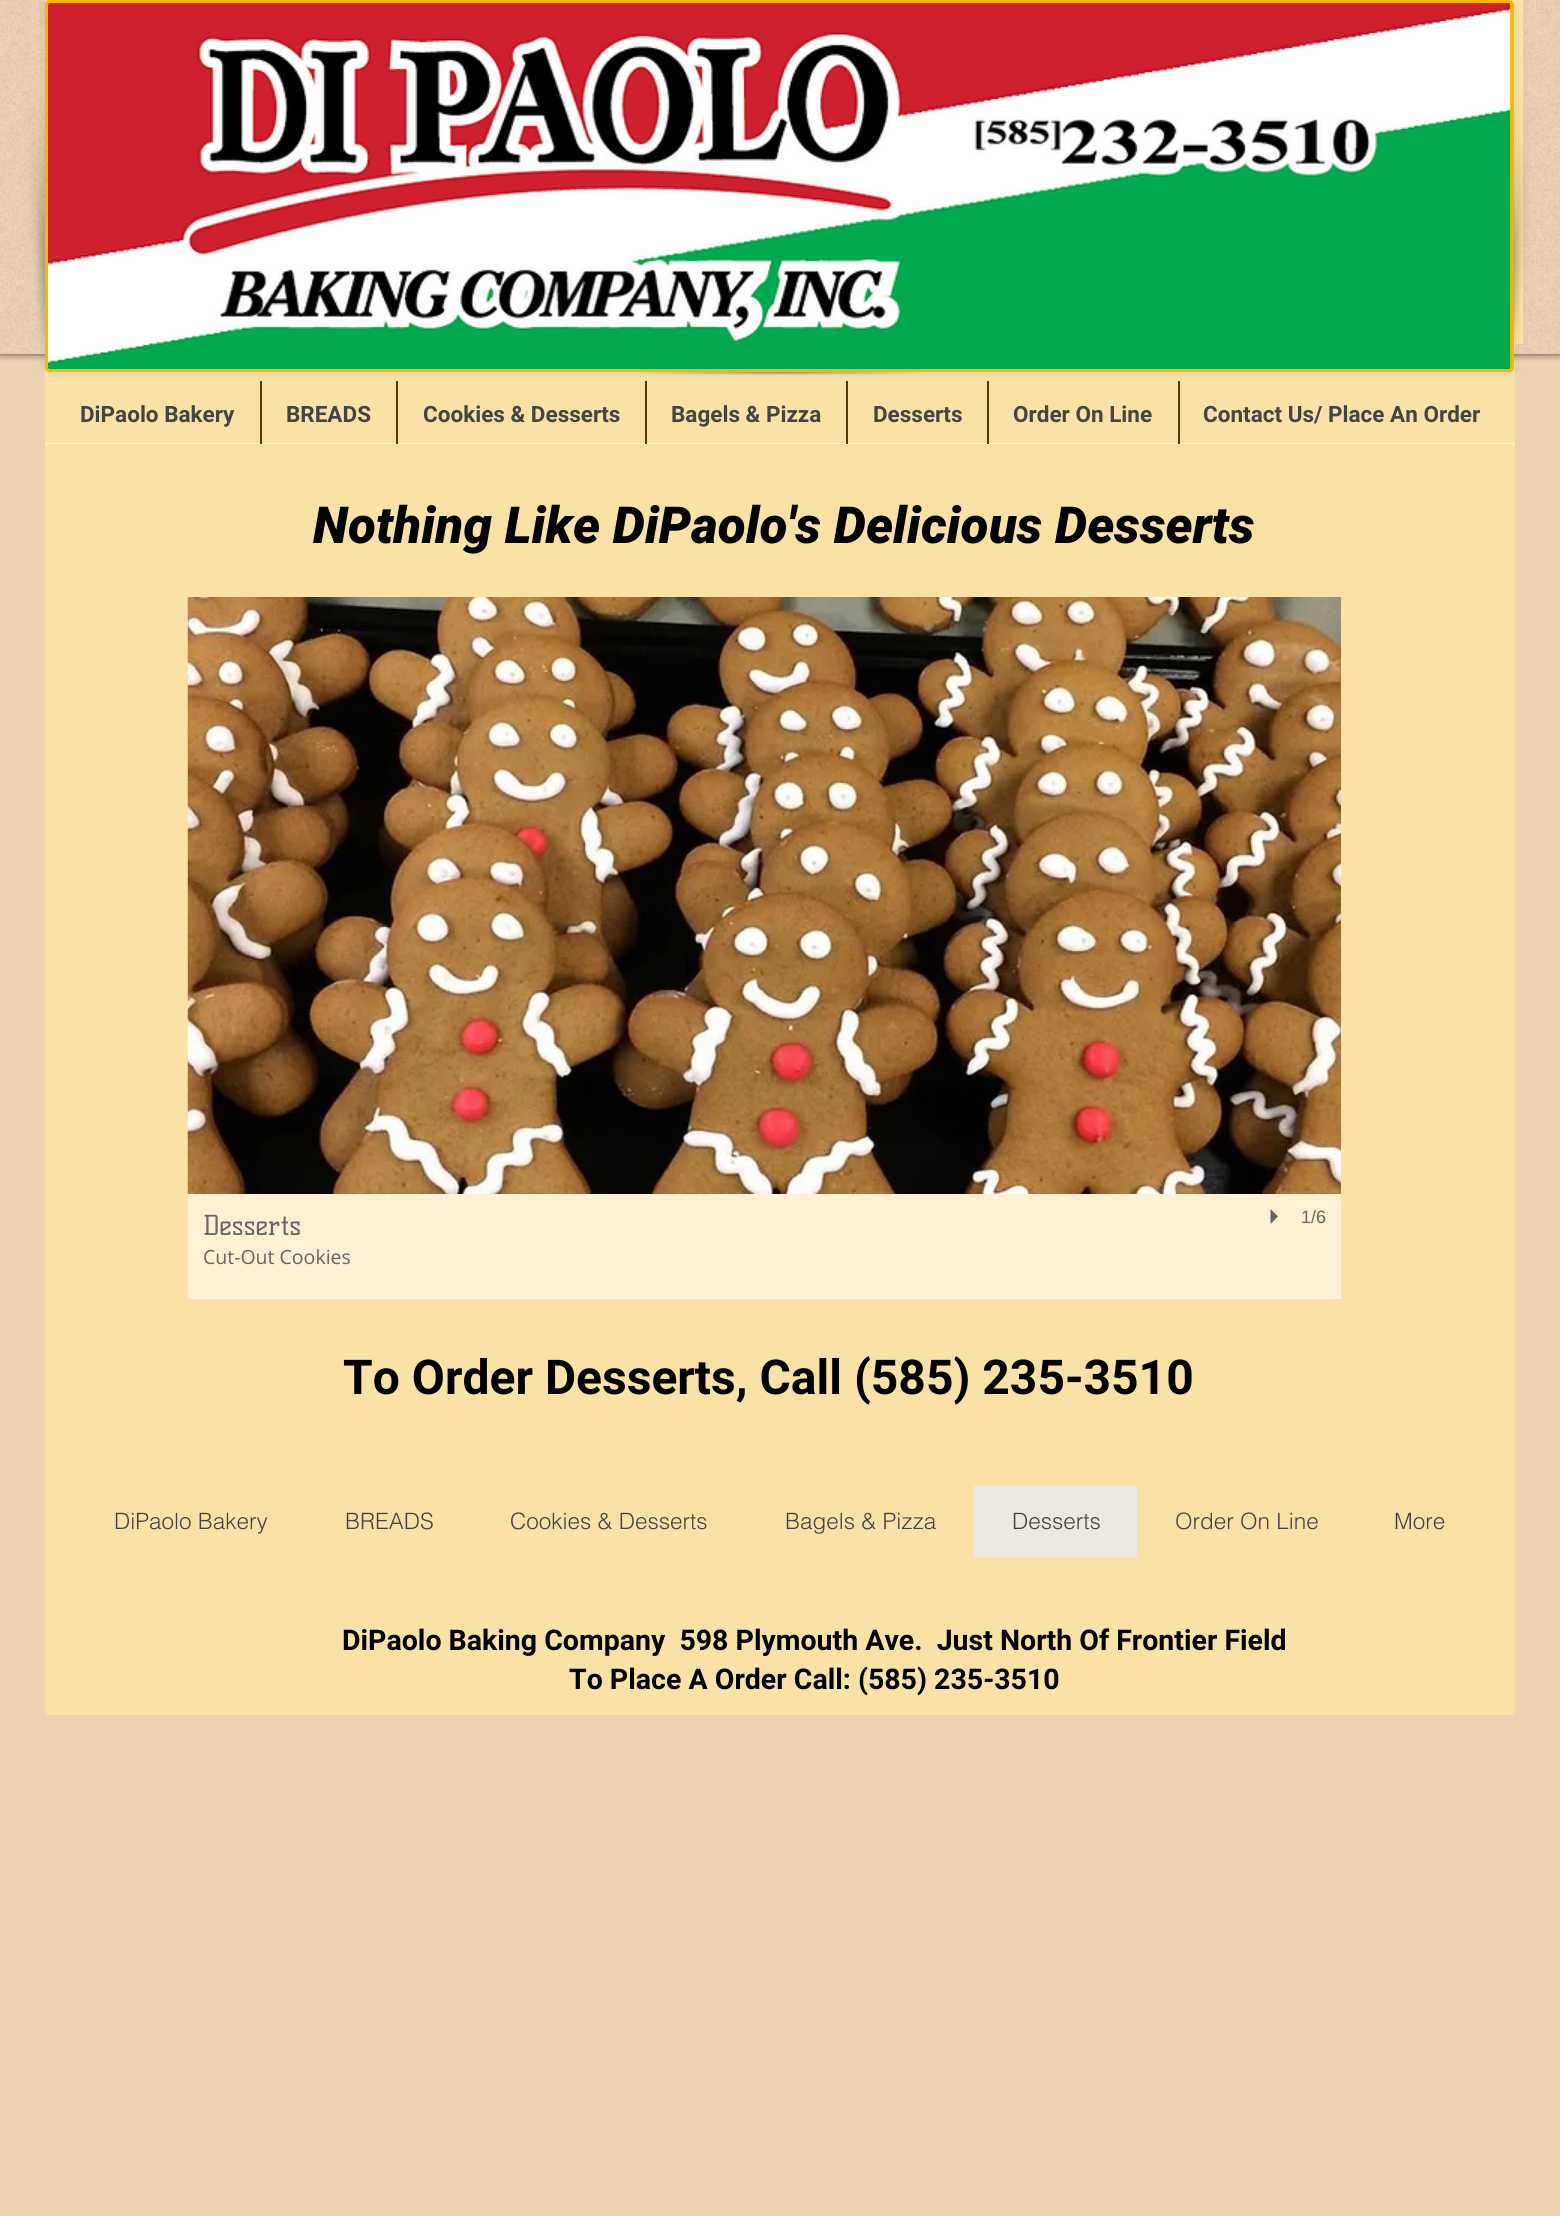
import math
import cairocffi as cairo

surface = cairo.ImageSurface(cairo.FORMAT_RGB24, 1560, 2216)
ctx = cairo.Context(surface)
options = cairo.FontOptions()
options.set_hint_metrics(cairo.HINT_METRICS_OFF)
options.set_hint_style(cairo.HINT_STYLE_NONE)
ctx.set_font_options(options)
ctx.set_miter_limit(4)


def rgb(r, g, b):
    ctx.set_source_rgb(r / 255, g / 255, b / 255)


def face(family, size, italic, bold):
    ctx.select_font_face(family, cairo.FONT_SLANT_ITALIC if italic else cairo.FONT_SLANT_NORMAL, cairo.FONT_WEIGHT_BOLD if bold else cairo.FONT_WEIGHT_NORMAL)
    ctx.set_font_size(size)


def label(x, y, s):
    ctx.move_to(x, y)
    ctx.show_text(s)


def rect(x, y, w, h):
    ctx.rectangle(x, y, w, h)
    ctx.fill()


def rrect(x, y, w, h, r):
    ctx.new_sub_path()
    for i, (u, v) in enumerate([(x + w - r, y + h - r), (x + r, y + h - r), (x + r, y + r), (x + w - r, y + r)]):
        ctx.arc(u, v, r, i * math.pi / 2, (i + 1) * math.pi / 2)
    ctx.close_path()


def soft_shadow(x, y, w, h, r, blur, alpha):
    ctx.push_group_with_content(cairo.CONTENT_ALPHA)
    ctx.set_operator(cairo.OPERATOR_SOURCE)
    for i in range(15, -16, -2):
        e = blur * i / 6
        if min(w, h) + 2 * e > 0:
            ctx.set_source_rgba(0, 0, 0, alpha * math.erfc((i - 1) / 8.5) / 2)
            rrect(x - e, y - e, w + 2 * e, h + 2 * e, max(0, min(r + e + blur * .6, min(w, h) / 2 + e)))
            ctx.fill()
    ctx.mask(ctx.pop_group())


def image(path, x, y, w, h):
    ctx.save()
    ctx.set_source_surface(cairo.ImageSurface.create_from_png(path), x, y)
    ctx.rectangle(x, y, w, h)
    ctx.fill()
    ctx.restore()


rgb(236, 211, 178)
ctx.paint()
rgb(249, 226, 166)
rect(45, 0, 1470, 443)
rgb(254, 248, 233)
rect(45, 443, 1470, 1)
ctx.save()
ctx.rectangle(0, 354, 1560, 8)
ctx.clip()
rgb(0, 0, 0)
soft_shadow(0, 0, 1560, 354, 0, 4, 0.7)
ctx.restore()
image('image0.png', 0, 0, 1560, 354)
rgb(249, 226, 166)
rect(1509, 0, 14, 344)
rgb(0, 0, 0)
soft_shadow(45, 0, 1469, 372, 5, 4, 0.1)
image('image1.png', 9, 12, 36, 329)
rgb(247, 184, 0)
rrect(46.5, 1.5, 1466, 369, 3.5)
ctx.fill_preserve()
ctx.set_line_width(3)
ctx.stroke()
image('image2.png', 48, 3, 1463, 366)
image('image3.png', 640, 372, 280, 3)
image('image4.png', 1513, 12, 36, 329)
face('Roboto', 22.5, 0, 1)
rgb(68, 68, 68)
label(80, 422, 'DiPaolo Bakery')
rgb(79, 57, 0)
rect(260, 381, 2, 66)
rgb(68, 68, 68)
label(286, 422, 'BREADS')
rgb(79, 57, 0)
rect(396, 381, 2, 66)
rgb(68, 68, 68)
label(423, 422, 'Cookies & Desserts')
rgb(79, 57, 0)
rect(645, 381, 2, 66)
rgb(68, 68, 68)
label(671, 422, 'Bagels & Pizza')
rgb(79, 57, 0)
rect(846, 381, 2, 66)
rgb(68, 68, 68)
label(873, 422, 'Desserts')
rgb(79, 57, 0)
rect(987, 381, 2, 66)
rgb(68, 68, 68)
label(1013, 422, 'Order On Line')
rgb(79, 57, 0)
rect(1178, 381, 2, 66)
rgb(68, 68, 68)
label(1203, 422, 'Contact Us/ Place An Order')
rgb(249, 226, 166)
rect(45, 444, 1470, 1271)
face('Roboto Black', 51, 1, 0)
rgb(0, 0, 0)
label(313, 543, 'Nothing Like DiPaolo\'s Delicious Desserts')
rgb(253, 240, 211)
rect(188, 1194, 1153, 105)
image('image5.png', 187, 597, 1154, 597)
face('Kelly Slab', 27, 0, 0)
rgb(102, 102, 102)
label(203, 1235, 'Desserts')
face('Open Sans', 19.5, 0, 0)
label(203, 1264, 'Cut-Out Cookies')
ctx.new_path()
ctx.move_to(1270.5, 1224)
ctx.line_to(1270.5, 1209)
ctx.line_to(1278, 1216.5)
ctx.close_path()
ctx.fill()
face('Liberation Sans', 18, 0, 0)
label(1301, 1223, '1/6')
face('Roboto', 48, 0, 1)
rgb(0, 0, 0)
label(343, 1394, 'To Order Desserts, Call (585) 235-3510')
face('helvetica Light', 22.5, 0, 0)
rgb(68, 68, 68)
label(114, 1529, 'DiPaolo Bakery')
label(345, 1529, 'BREADS')
label(510, 1529, 'Cookies & Desserts')
label(785, 1529, 'Bagels & Pizza')
rgb(237, 233, 225)
rect(974, 1485, 163, 72)
rgb(68, 68, 68)
label(1012, 1529, 'Desserts')
label(1175, 1529, 'Order On Line')
label(1394, 1529, 'More')
face('Roboto', 28.5, 0, 1)
rgb(0, 0, 0)
label(342, 1650, 'DiPaolo Baking Company  598 Plymouth Ave.  Just North Of Frontier Field')
label(569, 1689, 'To Place A Order Call: (585) 235-3510')
surface.write_to_png('render.png')
